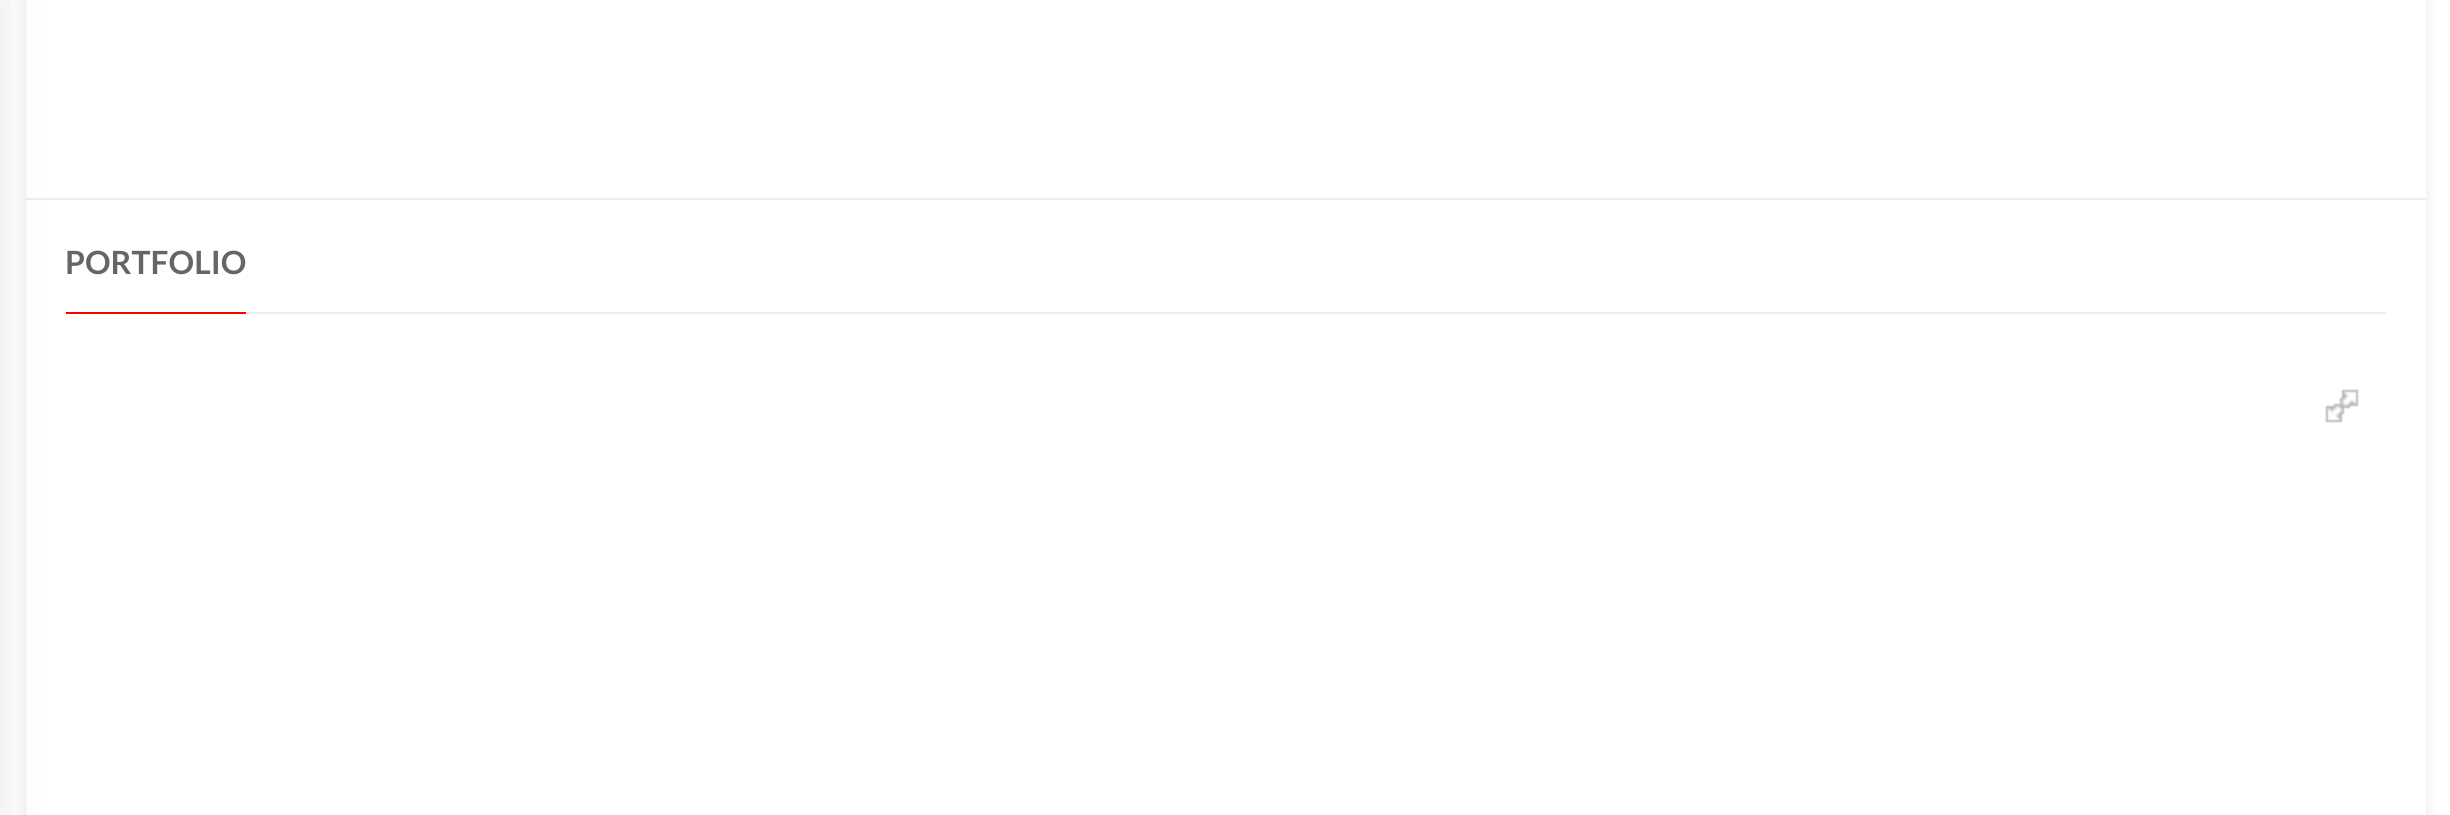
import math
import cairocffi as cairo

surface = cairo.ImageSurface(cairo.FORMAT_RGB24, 2450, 815)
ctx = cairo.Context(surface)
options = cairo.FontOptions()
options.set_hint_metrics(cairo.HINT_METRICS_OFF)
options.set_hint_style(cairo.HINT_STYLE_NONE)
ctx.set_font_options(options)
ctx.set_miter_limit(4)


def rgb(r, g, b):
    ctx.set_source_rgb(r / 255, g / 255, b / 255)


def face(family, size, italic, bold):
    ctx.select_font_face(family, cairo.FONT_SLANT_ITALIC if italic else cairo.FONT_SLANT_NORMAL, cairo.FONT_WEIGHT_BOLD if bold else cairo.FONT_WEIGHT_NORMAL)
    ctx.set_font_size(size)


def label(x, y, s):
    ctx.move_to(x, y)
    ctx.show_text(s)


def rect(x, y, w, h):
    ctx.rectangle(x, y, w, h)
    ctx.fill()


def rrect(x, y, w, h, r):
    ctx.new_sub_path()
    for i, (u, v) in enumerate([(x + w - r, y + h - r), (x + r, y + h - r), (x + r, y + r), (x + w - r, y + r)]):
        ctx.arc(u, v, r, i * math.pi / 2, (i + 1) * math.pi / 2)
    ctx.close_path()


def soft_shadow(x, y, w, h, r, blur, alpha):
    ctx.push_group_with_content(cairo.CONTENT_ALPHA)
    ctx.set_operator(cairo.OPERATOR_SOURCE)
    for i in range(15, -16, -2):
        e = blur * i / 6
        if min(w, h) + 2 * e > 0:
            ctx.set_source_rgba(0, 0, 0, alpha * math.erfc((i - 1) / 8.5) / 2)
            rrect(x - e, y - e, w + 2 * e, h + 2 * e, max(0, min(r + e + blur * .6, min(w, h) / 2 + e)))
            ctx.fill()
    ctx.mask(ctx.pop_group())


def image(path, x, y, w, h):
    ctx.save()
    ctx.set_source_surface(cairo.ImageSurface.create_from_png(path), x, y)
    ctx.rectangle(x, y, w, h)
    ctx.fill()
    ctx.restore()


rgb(255, 255, 255)
ctx.paint()
ctx.save()
ctx.set_fill_rule(cairo.FILL_RULE_EVEN_ODD)
ctx.new_path()
ctx.move_to(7, 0)
ctx.line_to(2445, 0)
ctx.line_to(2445, 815)
ctx.line_to(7, 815)
ctx.close_path()
ctx.move_to(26, 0)
ctx.line_to(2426, 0)
ctx.line_to(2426, 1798)
ctx.line_to(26, 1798)
ctx.close_path()
ctx.clip()
rgb(0, 0, 0)
soft_shadow(26, 0, 2400, 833, 0, 6, 0.1)
ctx.restore()
rgb(238, 238, 238)
rect(26, 198, 2400, 2)
rgb(255, 0, 0)
rect(66, 312, 180, 2)
rgb(0, 0, 0)
soft_shadow(-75, 0, 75, 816, 0, 25, 0.1)
rgb(238, 238, 238)
rect(246, 312, 2140, 2)
face('Lato', 32, 0, 1)
rgb(102, 102, 102)
label(65, 274, 'PORTFOLIO')
image('image0.png', 2325, 389, 34, 34)
surface.write_to_png('render.png')
